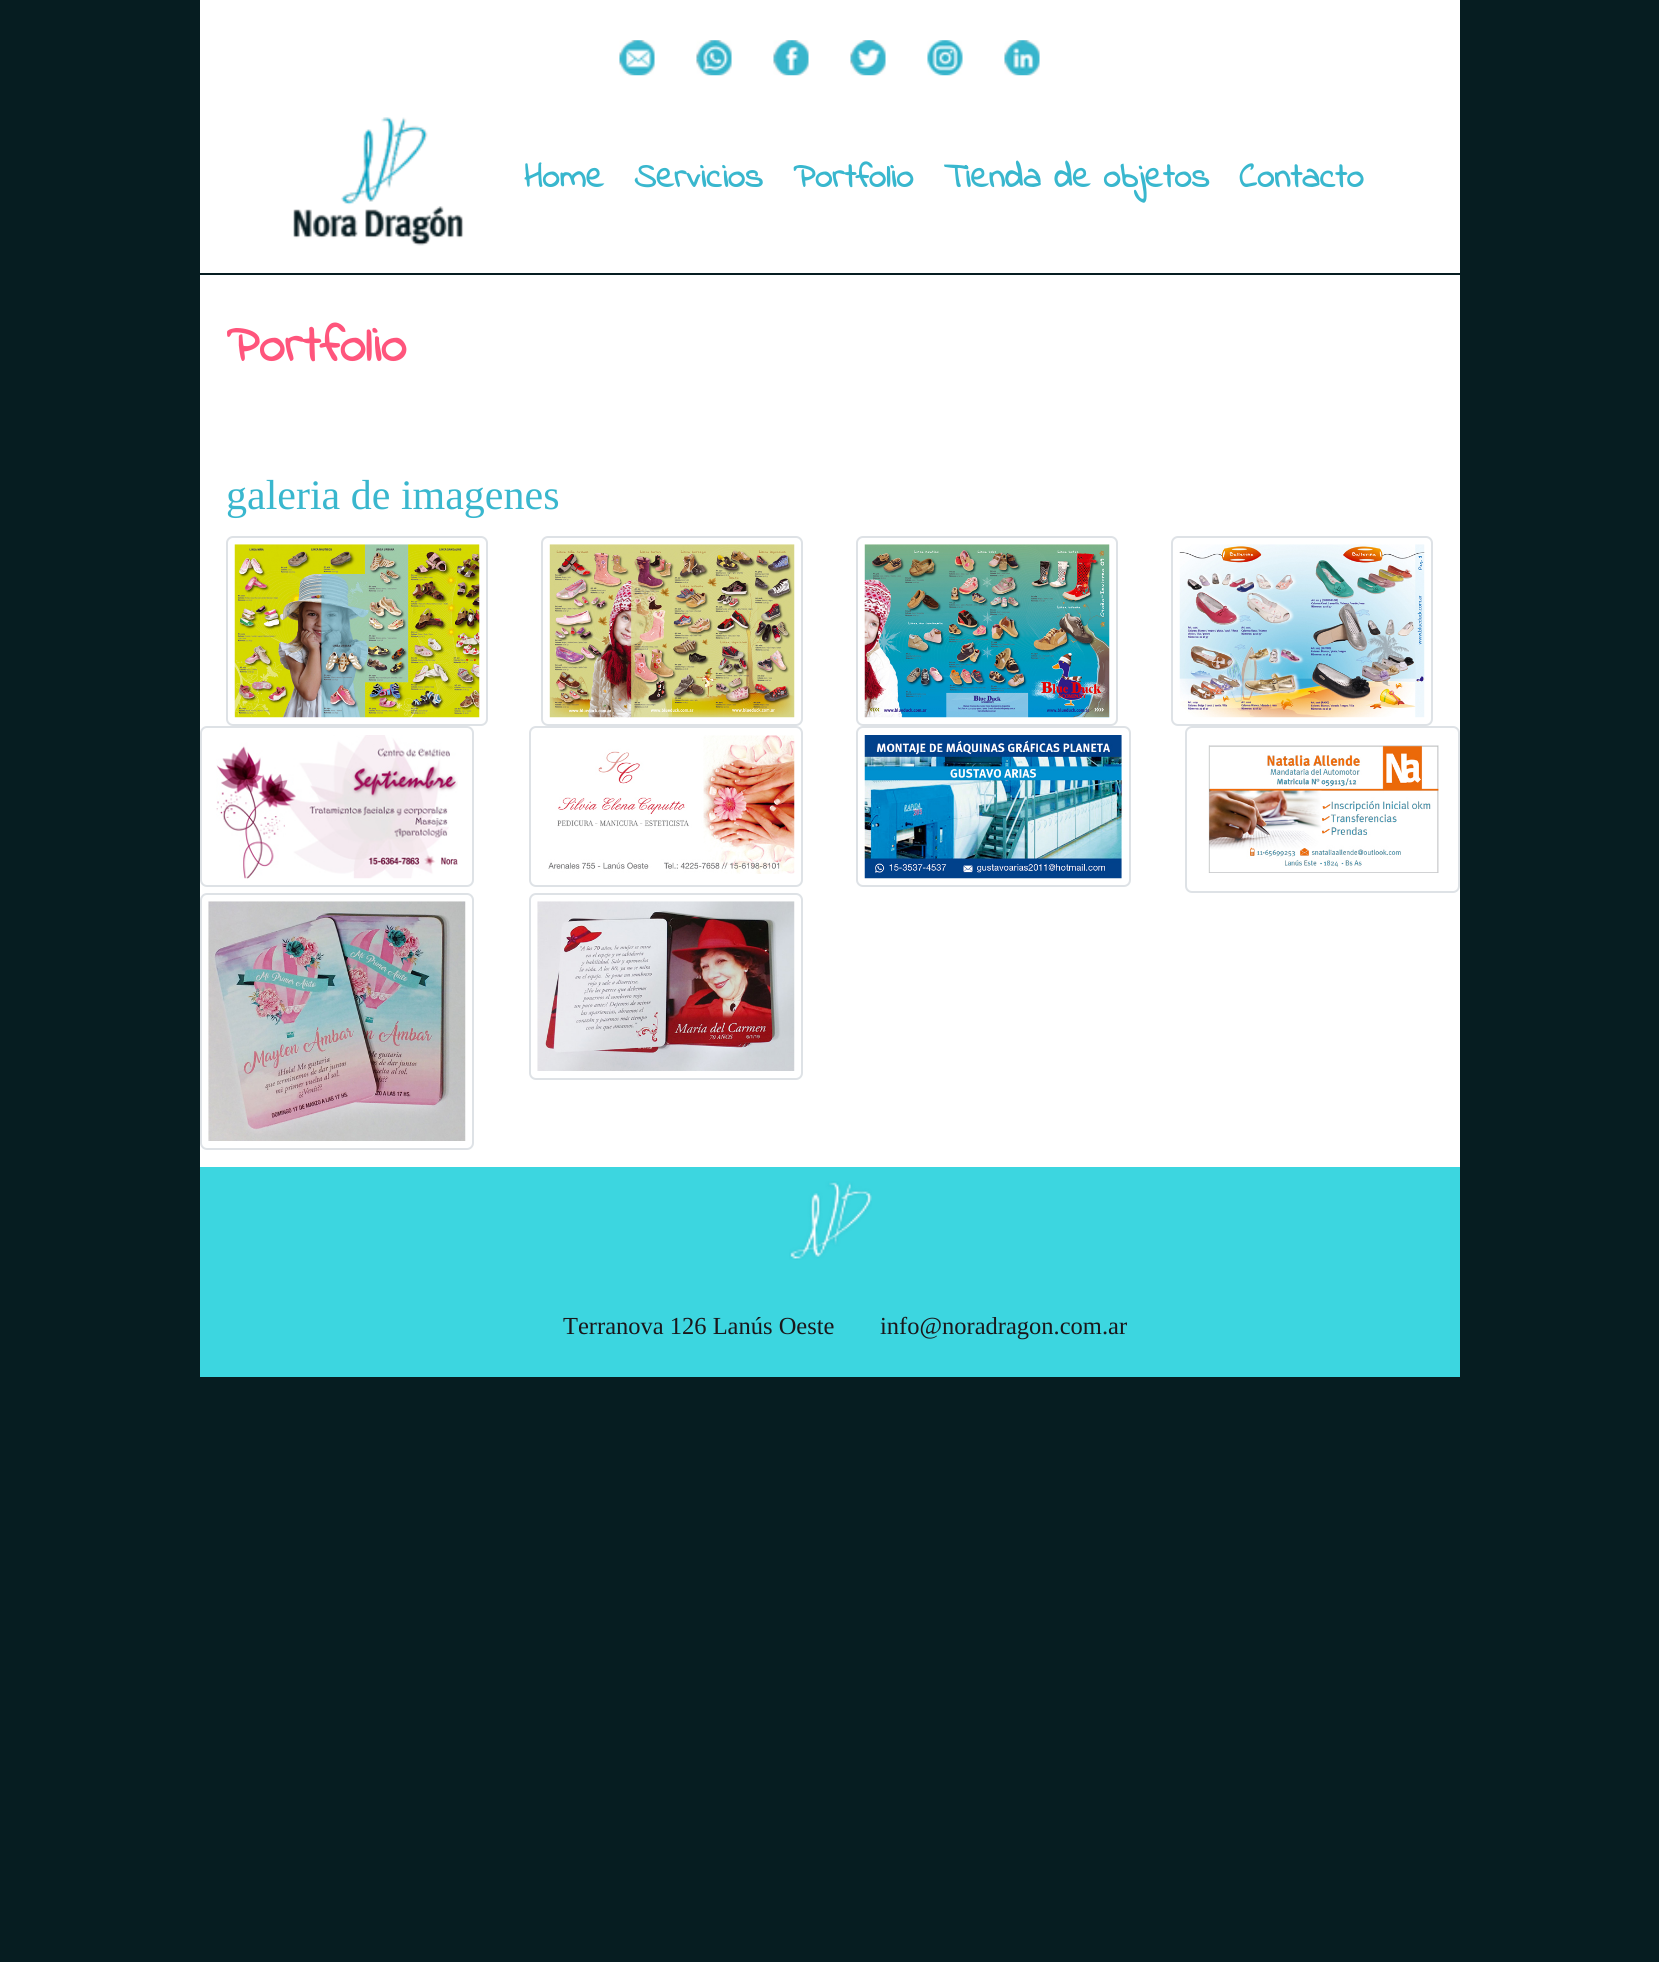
import math
import cairocffi as cairo

surface = cairo.ImageSurface(cairo.FORMAT_RGB24, 1659, 1962)
ctx = cairo.Context(surface)
options = cairo.FontOptions()
options.set_hint_metrics(cairo.HINT_METRICS_OFF)
options.set_hint_style(cairo.HINT_STYLE_NONE)
ctx.set_font_options(options)
ctx.set_miter_limit(4)


def rgb(r, g, b):
    ctx.set_source_rgb(r / 255, g / 255, b / 255)


def face(family, size, italic, bold):
    ctx.select_font_face(family, cairo.FONT_SLANT_ITALIC if italic else cairo.FONT_SLANT_NORMAL, cairo.FONT_WEIGHT_BOLD if bold else cairo.FONT_WEIGHT_NORMAL)
    ctx.set_font_size(size)


def label(x, y, s):
    ctx.move_to(x, y)
    ctx.show_text(s)


def rect(x, y, w, h):
    ctx.rectangle(x, y, w, h)
    ctx.fill()


def rrect(x, y, w, h, r):
    ctx.new_sub_path()
    for i, (u, v) in enumerate([(x + w - r, y + h - r), (x + r, y + h - r), (x + r, y + r), (x + w - r, y + r)]):
        ctx.arc(u, v, r, i * math.pi / 2, (i + 1) * math.pi / 2)
    ctx.close_path()


def image(path, x, y, w, h):
    ctx.save()
    ctx.set_source_surface(cairo.ImageSurface.create_from_png(path), x, y)
    ctx.rectangle(x, y, w, h)
    ctx.fill()
    ctx.restore()


rgb(6, 29, 33)
ctx.paint()
rgb(255, 255, 255)
rect(200, 0, 1260, 1167)
image('image0.png', 619, 40, 36, 36)
image('image1.png', 696, 40, 36, 36)
image('image2.png', 773, 40, 36, 36)
image('image3.png', 850, 40, 36, 36)
image('image4.png', 927, 40, 36, 36)
image('image5.png', 1004, 40, 36, 36)
image('image6.png', 293, 117, 171, 129)
face('Indie Flower', 35, 0, 1)
rgb(57, 183, 206)
label(524, 187, 'Home')
label(634, 187, 'Servicios')
label(793, 187, 'Portfolio')
label(944, 187, 'Tienda de objetos')
label(1239, 187, 'Contacto')
rgb(6, 29, 33)
rect(200, 273, 1260, 2)
face('Indie Flower', 52.5, 0, 1)
rgb(255, 85, 124)
label(226, 361, 'Portfolio')
face('Liberation Serif', 42, 0, 0)
rgb(57, 183, 206)
label(226, 509, 'galeria de imagenes')
rrect(227, 537, 260, 188, 6)
rgb(222, 226, 230)
ctx.stroke()
image('image7.png', 234, 544, 246, 174)
rrect(542, 537, 260, 188, 6)
ctx.stroke()
image('image8.png', 549, 544, 246, 174)
rrect(857, 537, 260, 188, 6)
ctx.stroke()
image('image9.png', 864, 544, 246, 174)
rrect(1172, 537, 260, 188, 6)
ctx.stroke()
image('image10.png', 1179, 544, 246, 174)
rrect(201, 727, 272, 159, 6)
ctx.stroke()
image('image11.png', 216, 735, 242, 144)
rrect(530, 727, 272, 159, 6)
ctx.stroke()
image('image12.png', 548, 735, 247, 139)
rrect(857, 727, 273, 159, 6)
ctx.stroke()
image('image13.png', 864, 735, 258, 144)
rrect(1186, 727, 273, 165, 6)
ctx.stroke()
image('image14.png', 1208, 745, 231, 128)
rrect(201, 894, 272, 255, 6)
ctx.stroke()
image('image15.png', 208, 901, 258, 240)
rrect(530, 894, 272, 185, 6)
ctx.stroke()
image('image16.png', 537, 901, 258, 170)
rgb(60, 214, 224)
rect(200, 1167, 1260, 210)
image('image17.png', 789, 1181, 83, 79)
face('Liberation Serif', 24.5, 0, 0)
rgb(26, 23, 27)
label(563, 1334, 'Terranova 126 Lanús Oeste')
label(880, 1334, 'info@noradragon.com.ar')
surface.write_to_png('render.png')
